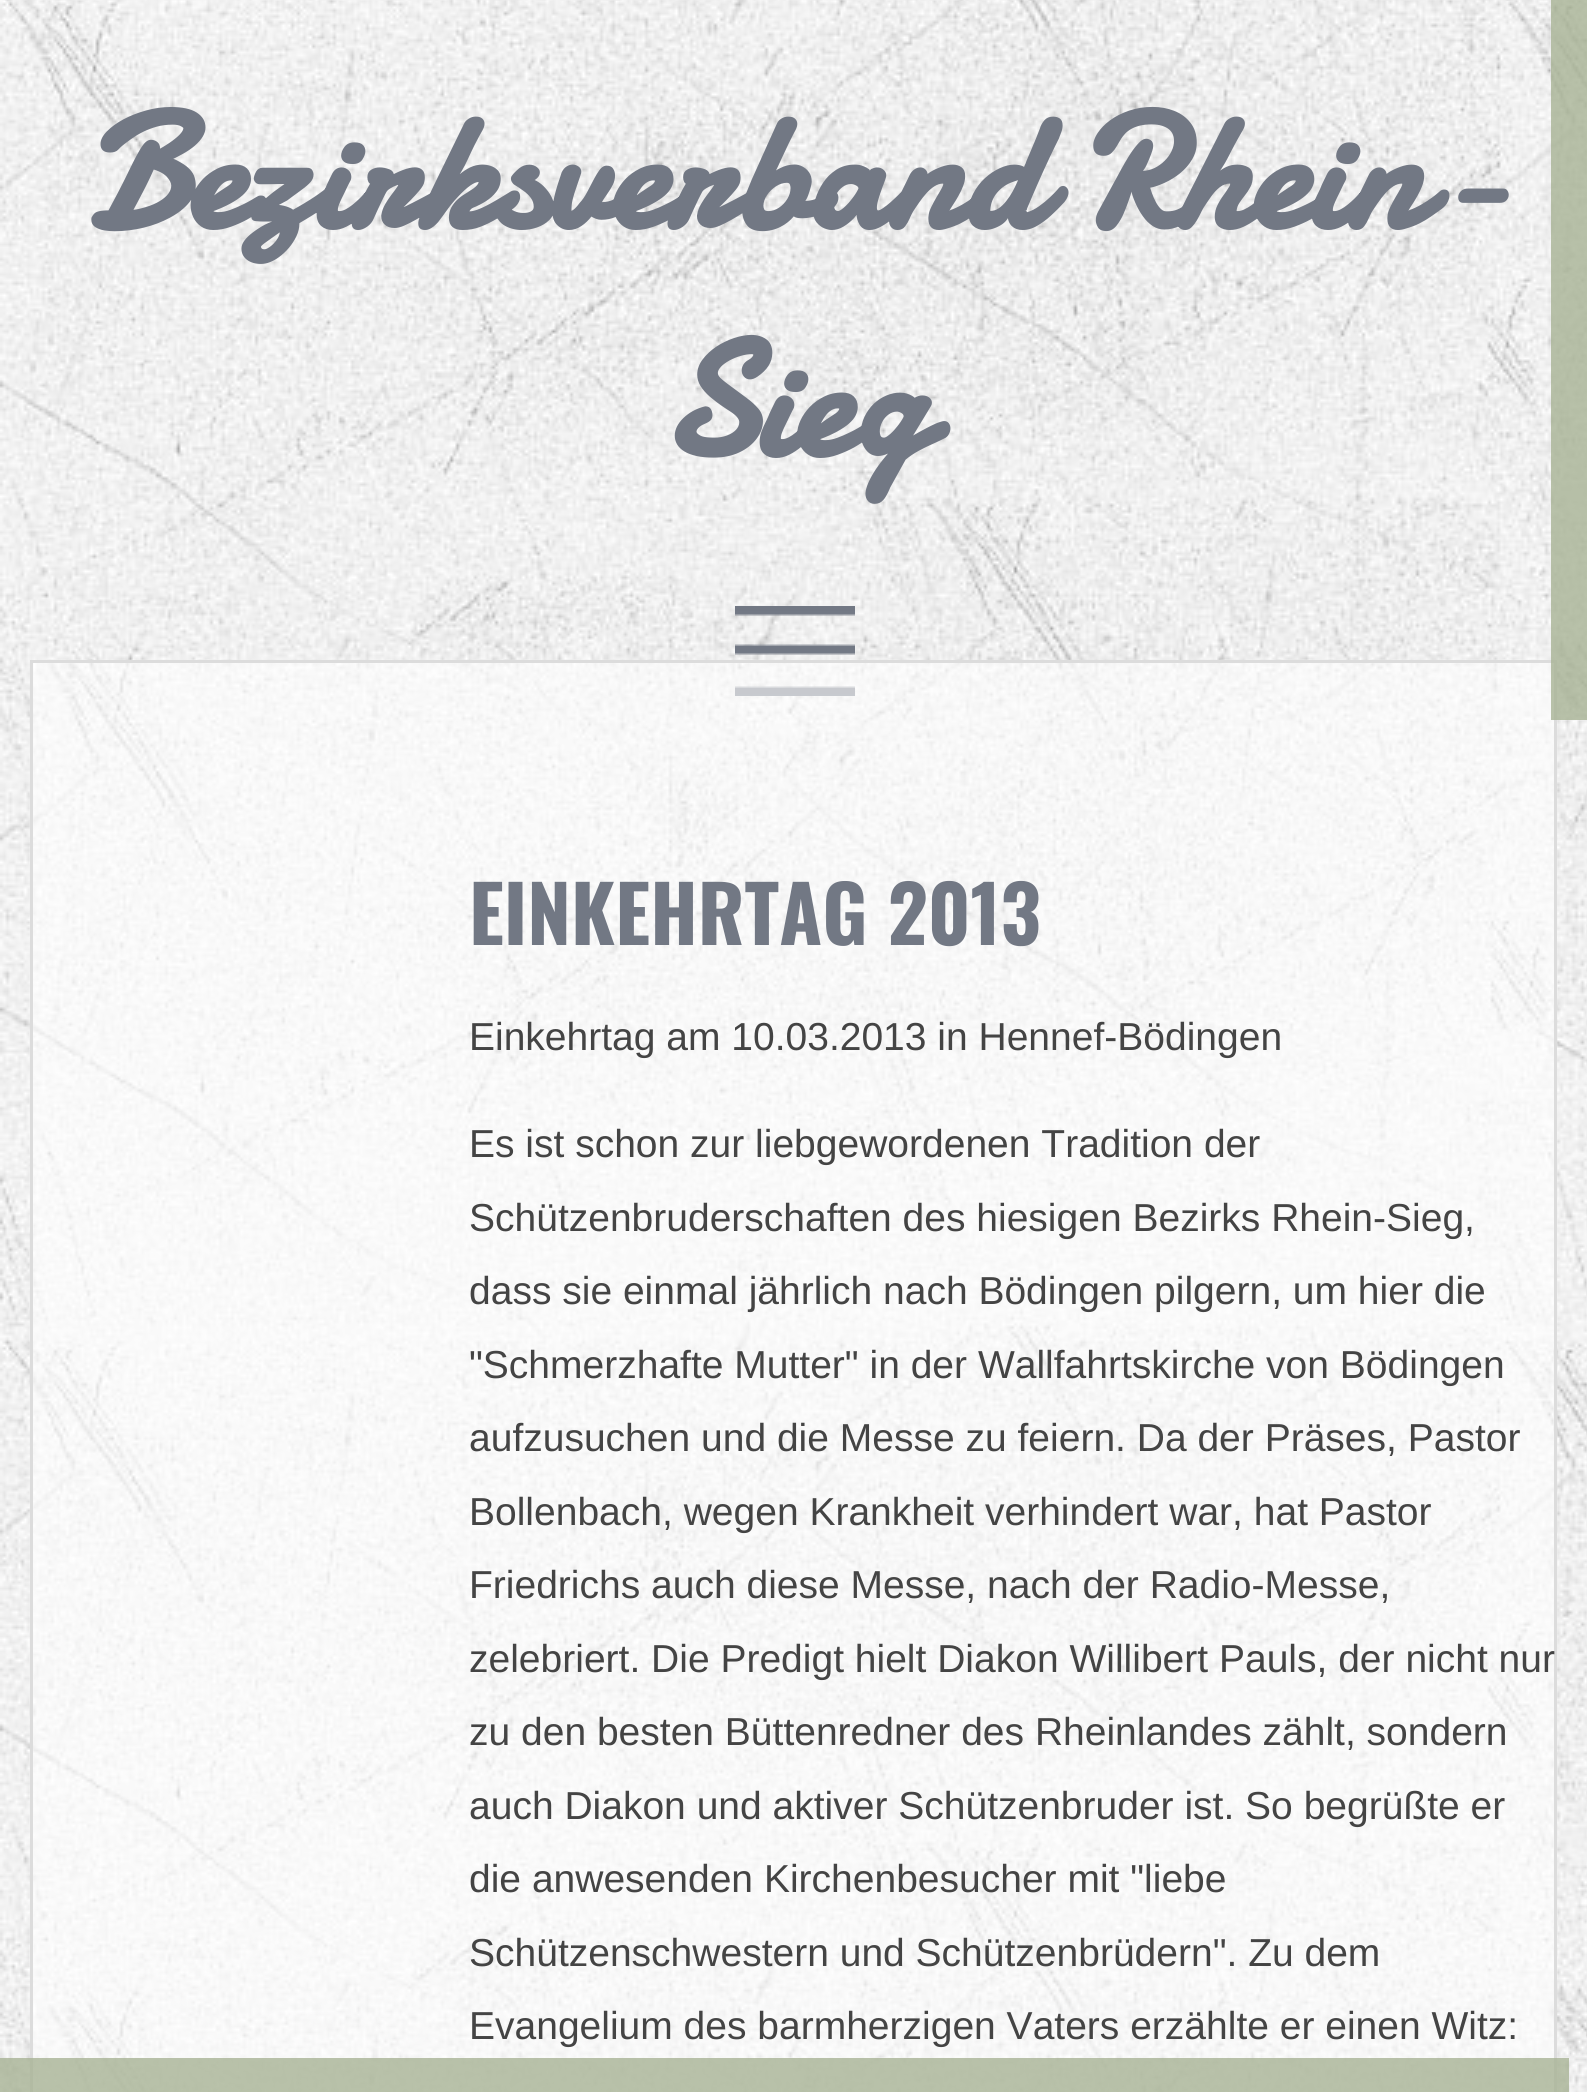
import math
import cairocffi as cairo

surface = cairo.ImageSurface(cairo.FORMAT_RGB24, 1587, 2092)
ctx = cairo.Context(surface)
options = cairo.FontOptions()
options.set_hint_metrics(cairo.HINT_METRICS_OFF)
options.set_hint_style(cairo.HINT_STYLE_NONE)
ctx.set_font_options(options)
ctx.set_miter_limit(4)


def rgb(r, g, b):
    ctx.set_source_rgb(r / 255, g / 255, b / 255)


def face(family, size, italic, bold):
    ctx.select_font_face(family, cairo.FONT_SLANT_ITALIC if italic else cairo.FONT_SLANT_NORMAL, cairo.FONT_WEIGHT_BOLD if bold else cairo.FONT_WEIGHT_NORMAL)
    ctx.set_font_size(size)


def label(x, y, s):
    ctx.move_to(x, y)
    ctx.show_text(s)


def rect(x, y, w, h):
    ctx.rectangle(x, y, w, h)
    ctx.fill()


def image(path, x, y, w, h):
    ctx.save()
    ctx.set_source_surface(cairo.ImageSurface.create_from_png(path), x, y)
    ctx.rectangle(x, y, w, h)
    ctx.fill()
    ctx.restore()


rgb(255, 255, 255)
ctx.paint()
image('image0.png', 0, 0, 1587, 2092)
face('Damion', 165, 0, 1)
rgb(114, 120, 132)
label(84, 228, 'Bezirksverband Rhein-')
label(660, 456, 'Sieg')
image('image1.png', 735, 606, 120, 90)
ctx.set_source_rgba(1, 1, 1, 0.6)
ctx.rectangle(31.5, 661.5, 1524, 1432)
ctx.fill_preserve()
rgb(220, 220, 220)
ctx.set_line_width(3)
ctx.stroke()
ctx.set_source_rgba(0.655, 0.698, 0.58, 0.79)
rect(1551, 0, 36, 720)
face('Oswald', 78, 0, 1)
rgb(114, 120, 132)
label(469, 945, 'EINKEHRTAG 2013')
face('Liberation Sans', 39, 0, 0)
rgb(68, 68, 68)
label(469, 1050, 'Einkehrtag am 10.03.2013 in Hennef-Bödingen')
label(469, 1157, 'Es ist schon zur liebgewordenen Tradition der')
label(469, 1231, 'Schützenbruderschaften des hiesigen Bezirks Rhein-Sieg,')
label(469, 1304, 'dass sie einmal jährlich nach Bödingen pilgern, um hier die')
label(469, 1378, '"Schmerzhafte Mutter" in der Wallfahrtskirche von Bödingen')
label(469, 1451, 'aufzusuchen und die Messe zu feiern. Da der Präses, Pastor')
label(469, 1525, 'Bollenbach, wegen Krankheit verhindert war, hat Pastor')
label(469, 1598, 'Friedrichs auch diese Messe, nach der Radio-Messe,')
label(469, 1672, 'zelebriert. Die Predigt hielt Diakon Willibert Pauls, der nicht nur')
label(469, 1745, 'zu den besten Büttenredner des Rheinlandes zählt, sondern')
label(469, 1819, 'auch Diakon und aktiver Schützenbruder ist. So begrüßte er')
label(469, 1892, 'die anwesenden Kirchenbesucher mit "liebe')
label(469, 1966, 'Schützenschwestern und Schützenbrüdern". Zu dem')
label(469, 2039, 'Evangelium des barmherzigen Vaters erzählte er einen Witz:')
ctx.set_source_rgba(0.655, 0.698, 0.58, 0.79)
rect(0, 2058, 1569, 34)
surface.write_to_png('render.png')
